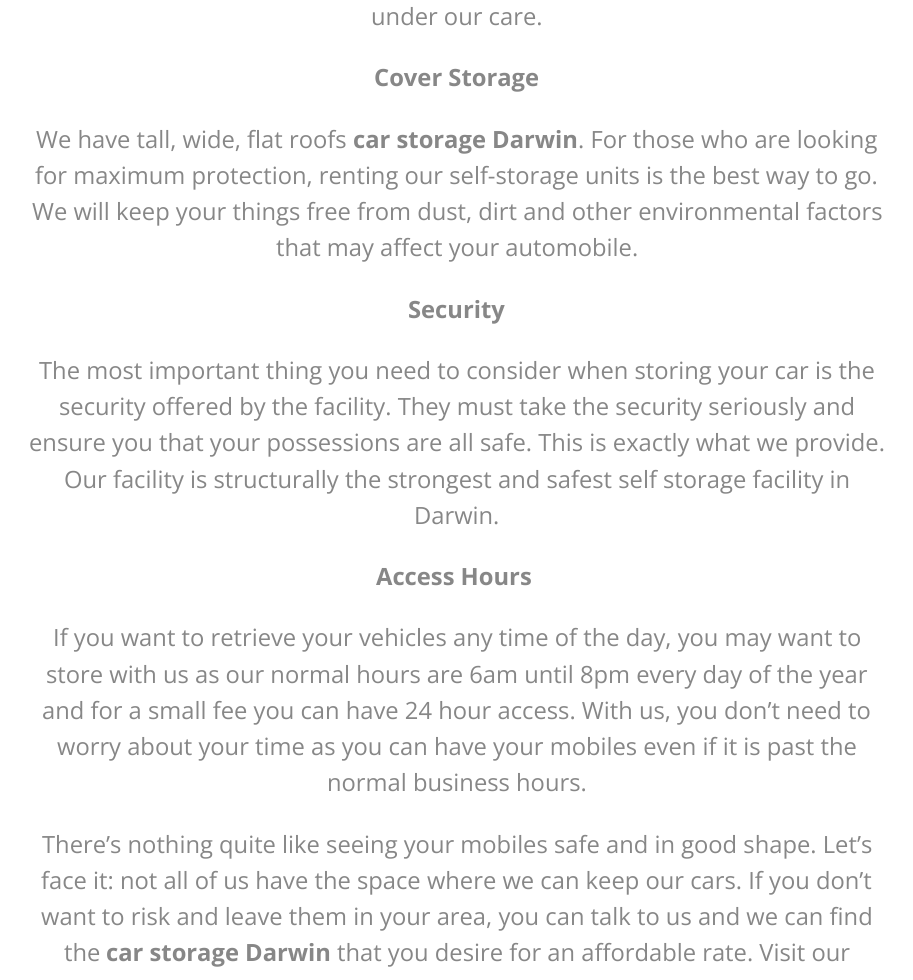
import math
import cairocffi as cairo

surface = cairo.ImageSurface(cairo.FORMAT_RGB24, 913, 980)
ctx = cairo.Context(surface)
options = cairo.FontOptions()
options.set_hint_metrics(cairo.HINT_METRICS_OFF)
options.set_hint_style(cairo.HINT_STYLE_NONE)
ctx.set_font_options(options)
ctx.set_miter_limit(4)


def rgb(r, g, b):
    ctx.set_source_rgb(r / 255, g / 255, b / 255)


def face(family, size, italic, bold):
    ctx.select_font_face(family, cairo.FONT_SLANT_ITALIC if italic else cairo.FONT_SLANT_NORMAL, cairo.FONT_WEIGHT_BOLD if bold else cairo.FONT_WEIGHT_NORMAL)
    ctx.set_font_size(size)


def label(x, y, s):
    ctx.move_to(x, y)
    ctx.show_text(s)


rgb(255, 255, 255)
ctx.paint()
face('Open Sans', 23.75, 0, 0)
rgb(135, 135, 135)
label(371, 25, 'under our care.')
face('Open Sans', 23.75, 0, 1)
label(374, 86, 'Cover Storage')
face('Open Sans', 23.75, 0, 0)
label(36, 148, 'We have tall, wide, flat roofs')
face('Open Sans', 23.75, 0, 1)
label(353, 148, 'car storage Darwin')
face('Open Sans', 23.75, 0, 0)
label(578, 148, '. For those who are looking')
label(35, 184, 'for maximum protection, renting our self-storage units is the best way to go.')
label(32, 220, 'We will keep your things free from dust, dirt and other environmental factors')
label(276, 256, 'that may affect your automobile.')
face('Open Sans', 23.75, 0, 1)
label(408, 318, 'Security')
face('Open Sans', 23.75, 0, 0)
label(39, 379, 'The most important thing you need to consider when storing your car is the')
label(59, 415, 'security offered by the facility. They must take the security seriously and')
label(29, 451, 'ensure you that your possessions are all safe. This is exactly what we provide.')
label(64, 488, 'Our facility is structurally the strongest and safest self storage facility in')
label(414, 524, 'Darwin.')
face('Open Sans', 23.75, 0, 1)
label(376, 585, 'Access Hours')
face('Open Sans', 23.75, 0, 0)
label(53, 646, 'If you want to retrieve your vehicles any time of the day, you may want to')
label(46, 683, 'store with us as our normal hours are 6am until 8pm every day of the year')
label(42, 719, 'and for a small fee you can have 24 hour access. With us, you don’t need to')
label(57, 755, 'worry about your time as you can have your mobiles even if it is past the')
label(327, 791, 'normal business hours.')
label(42, 853, 'There’s nothing quite like seeing your mobiles safe and in good shape. Let’s')
label(41, 889, 'face it: not all of us have the space where we can keep our cars. If you don’t')
label(41, 925, 'want to risk and leave them in your area, you can talk to us and we can find')
label(64, 961, 'the')
face('Open Sans', 23.75, 0, 1)
label(106, 961, 'car storage Darwin')
face('Open Sans', 23.75, 0, 0)
label(337, 961, 'that you desire for an affordable rate. Visit our')
surface.write_to_png('render.png')
